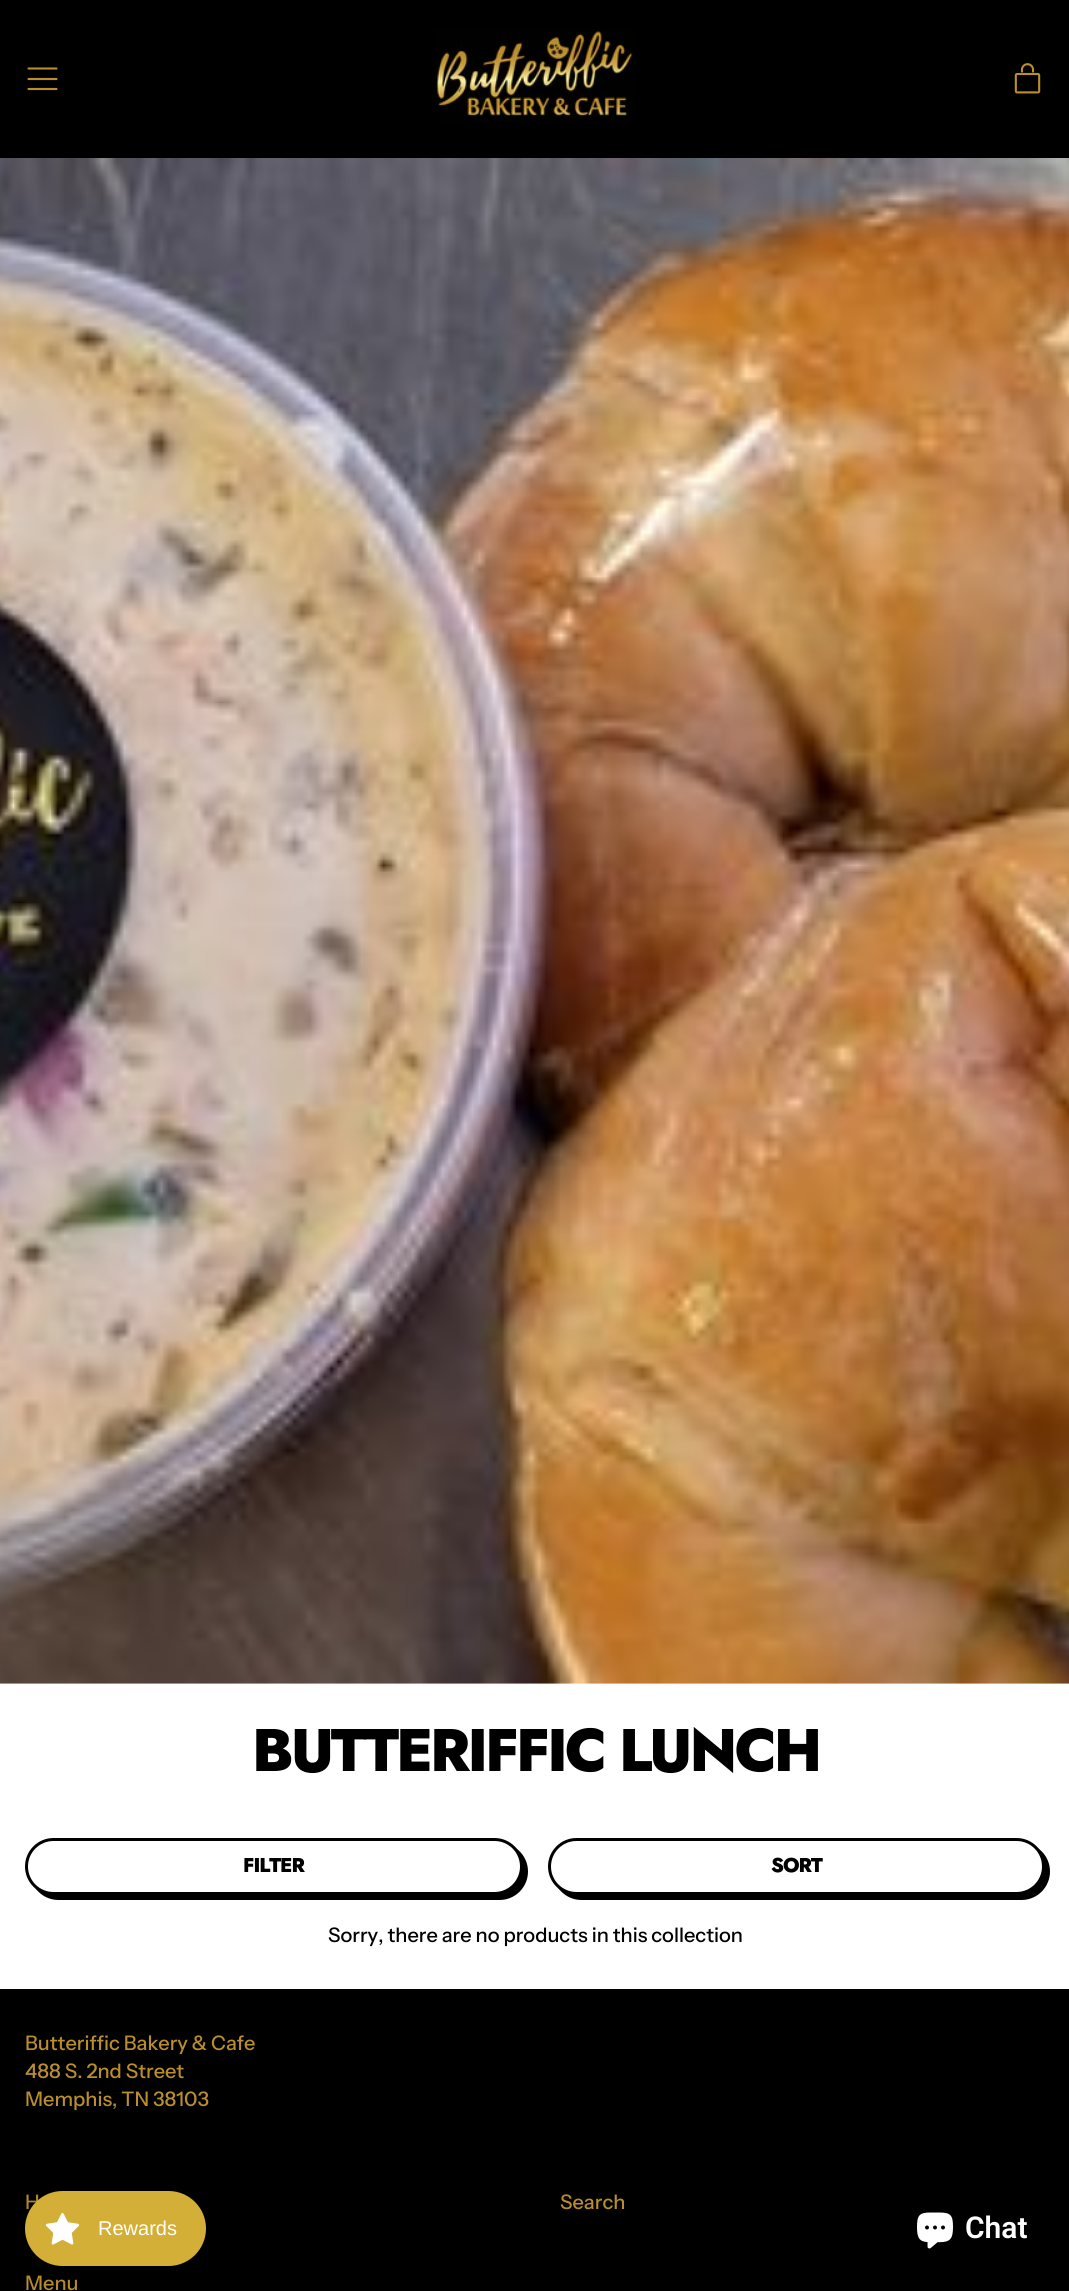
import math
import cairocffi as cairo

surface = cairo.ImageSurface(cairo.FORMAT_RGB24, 1069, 2291)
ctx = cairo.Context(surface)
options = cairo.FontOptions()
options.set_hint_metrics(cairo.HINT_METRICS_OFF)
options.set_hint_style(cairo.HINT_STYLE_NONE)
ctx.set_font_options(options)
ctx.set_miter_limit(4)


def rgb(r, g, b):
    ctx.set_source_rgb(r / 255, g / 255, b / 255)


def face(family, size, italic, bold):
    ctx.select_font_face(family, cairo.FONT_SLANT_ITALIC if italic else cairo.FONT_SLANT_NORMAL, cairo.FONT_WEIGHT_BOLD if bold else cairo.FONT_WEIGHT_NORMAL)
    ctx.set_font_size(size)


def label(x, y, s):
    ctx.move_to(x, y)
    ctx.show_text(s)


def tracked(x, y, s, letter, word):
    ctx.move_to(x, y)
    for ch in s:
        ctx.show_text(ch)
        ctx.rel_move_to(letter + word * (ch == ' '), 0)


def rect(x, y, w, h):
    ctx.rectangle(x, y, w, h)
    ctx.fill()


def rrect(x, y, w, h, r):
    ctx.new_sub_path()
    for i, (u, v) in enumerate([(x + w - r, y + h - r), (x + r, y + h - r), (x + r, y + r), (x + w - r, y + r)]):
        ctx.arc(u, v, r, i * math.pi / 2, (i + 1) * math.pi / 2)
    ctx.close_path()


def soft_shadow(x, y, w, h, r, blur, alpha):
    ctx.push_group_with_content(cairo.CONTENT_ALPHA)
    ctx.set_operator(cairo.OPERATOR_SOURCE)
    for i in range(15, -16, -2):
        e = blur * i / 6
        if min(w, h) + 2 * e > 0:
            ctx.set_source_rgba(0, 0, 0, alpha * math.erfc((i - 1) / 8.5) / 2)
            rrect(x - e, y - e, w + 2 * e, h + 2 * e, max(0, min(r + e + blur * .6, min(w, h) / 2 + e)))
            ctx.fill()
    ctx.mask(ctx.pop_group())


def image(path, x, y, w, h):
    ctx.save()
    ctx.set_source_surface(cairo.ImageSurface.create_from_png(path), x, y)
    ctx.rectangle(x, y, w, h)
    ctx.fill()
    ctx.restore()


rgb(255, 255, 255)
ctx.paint()
rgb(0, 0, 0)
rect(0, 0, 1069, 158)
ctx.new_path()
ctx.move_to(56.5, 89)
ctx.line_to(28.5, 89)
ctx.move_to(56.5, 79)
ctx.line_to(28.5, 79)
ctx.move_to(56.5, 68.5)
ctx.line_to(28.5, 68.5)
rgb(186, 142, 45)
ctx.set_line_width(2.1)
ctx.set_line_cap(cairo.LINE_CAP_ROUND)
ctx.set_line_join(cairo.LINE_JOIN_ROUND)
ctx.stroke()
image('image0.png', 435, 29, 200, 94)
image('image1.png', 1014, 63, 27, 31)
image('image2.png', 0, 158, 1069, 1526)
face('Jost ExtraBold', 60, 0, 0)
rgb(0, 0, 0)
tracked(252, 1771, 'BUTTERIFFIC LUNCH', -3, 0)
rrect(31.5, 1844.5, 495, 54, 27)
ctx.fill_preserve()
ctx.set_line_width(3)
ctx.set_line_cap(cairo.LINE_CAP_BUTT)
ctx.set_line_join(cairo.LINE_JOIN_MITER)
ctx.stroke()
rgb(255, 255, 255)
rrect(26.5, 1839.5, 495, 54, 27)
ctx.fill_preserve()
rgb(0, 0, 0)
ctx.stroke()
face('Jost ExtraBold', 20, 0, 0)
tracked(243, 1872, 'FILTER', -1, 0)
rrect(554.5, 1844.5, 494, 54, 27)
ctx.fill_preserve()
ctx.stroke()
rgb(255, 255, 255)
rrect(549.5, 1839.5, 494, 54, 27)
ctx.fill_preserve()
rgb(0, 0, 0)
ctx.stroke()
tracked(771, 1872, 'SORT', -1, 0)
face('Instrument Sans Medium', 20, 0, 0)
label(328, 1942, 'Sorry, there are no products in this collection')
rect(0, 1989, 1069, 302)
rgb(186, 142, 45)
label(25, 2050, 'Butteriffic Bakery & Cafe')
label(25, 2078, '488 S. 2nd Street')
label(25, 2106, 'Memphis, TN 38103')
label(25, 2209, 'H')
label(25, 2290, 'Menu')
label(560, 2209, 'Search')
image('image3.png', 917, 2212, 36, 37)
face('Roboto SemiBold', 30, 0, 0)
rgb(255, 255, 255)
label(965, 2238, 'Chat')
rgb(0, 0, 0)
soft_shadow(25, 2194, 181, 75, 37.5, 19, 0.15)
rgb(212, 175, 55)
rrect(25, 2191, 181, 75, 37.5)
ctx.fill()
image('image4.png', 45, 2212, 35, 33)
face('Liberation Sans', 20, 0, 0)
rgb(255, 255, 255)
label(98, 2235, 'Rewards')
surface.write_to_png('render.png')
